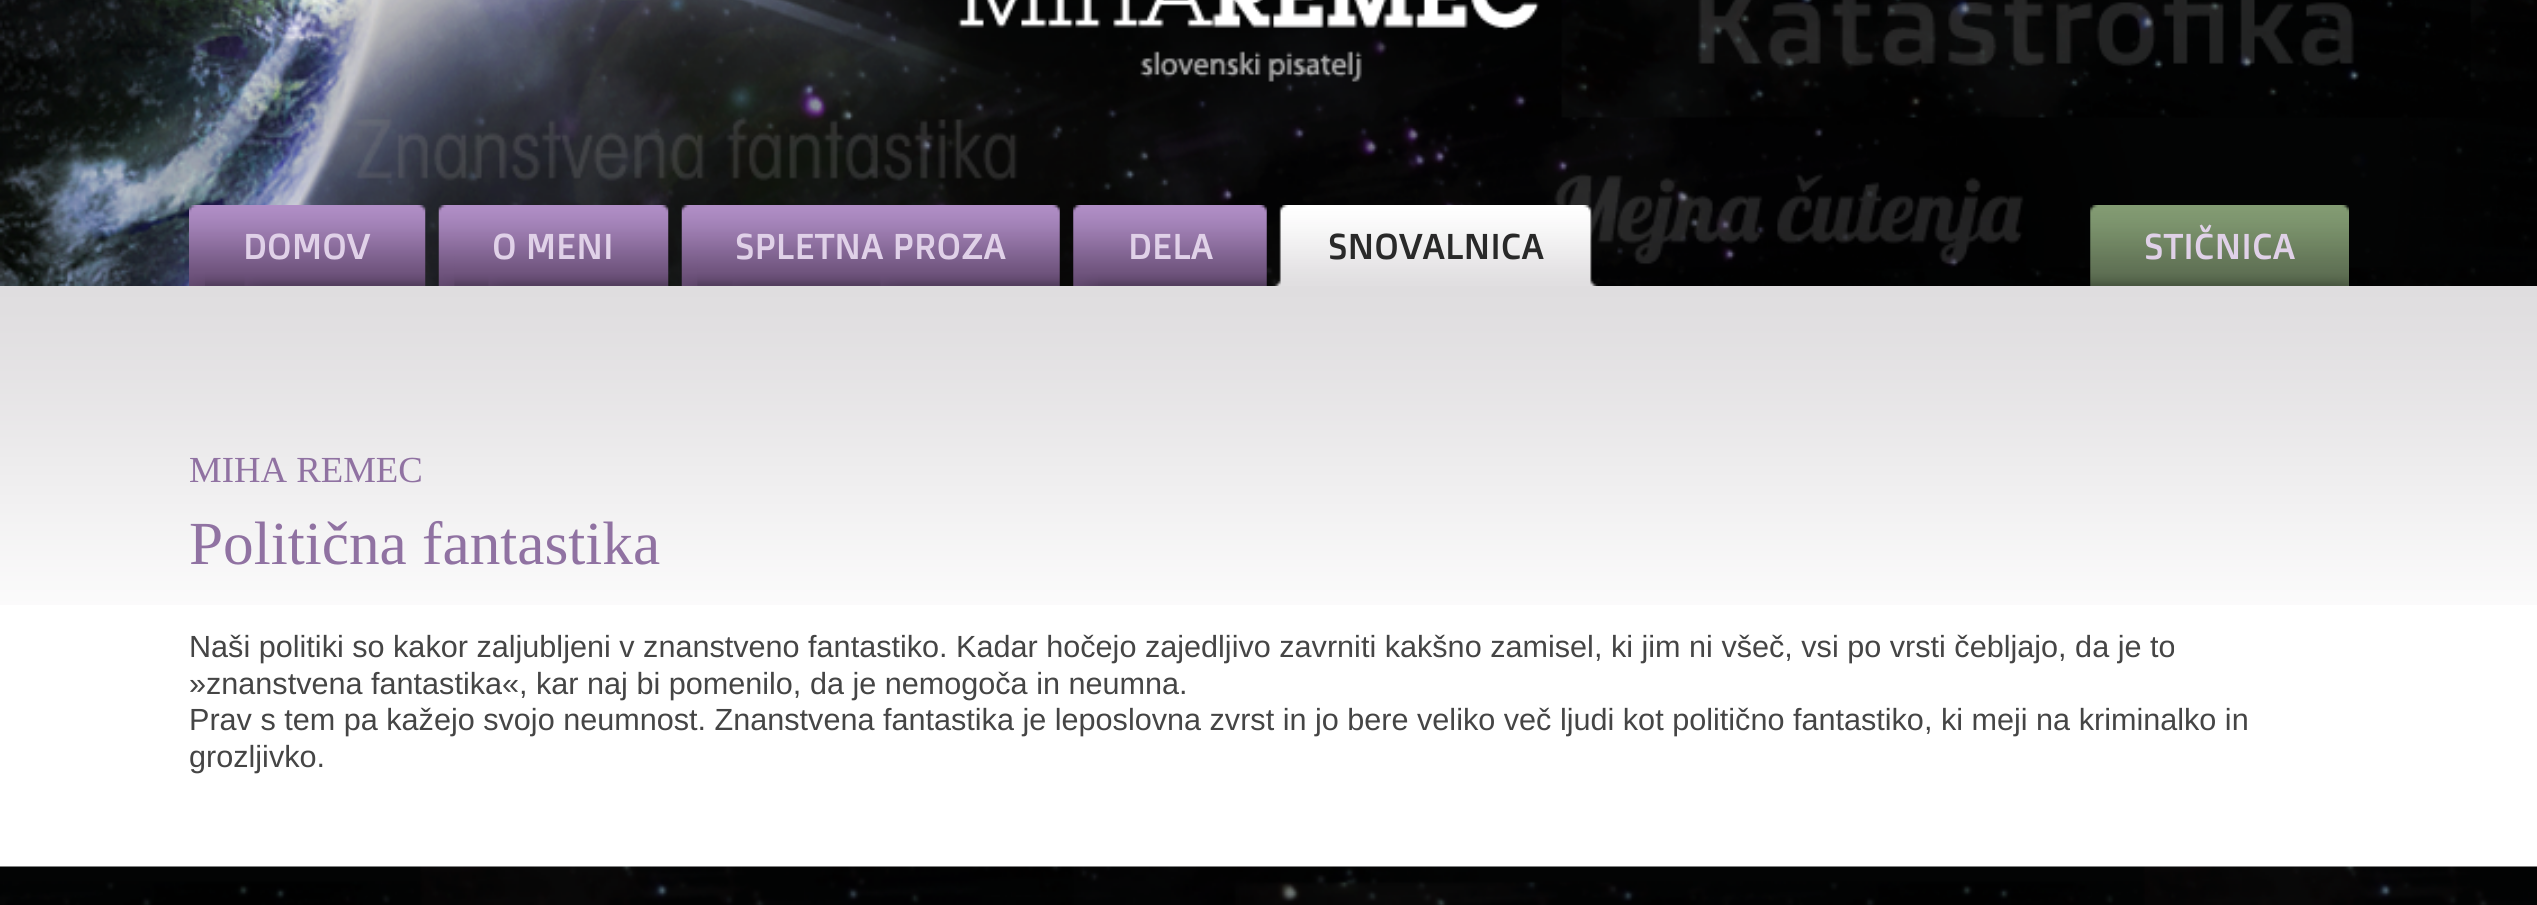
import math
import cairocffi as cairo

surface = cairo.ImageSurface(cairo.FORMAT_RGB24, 2537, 905)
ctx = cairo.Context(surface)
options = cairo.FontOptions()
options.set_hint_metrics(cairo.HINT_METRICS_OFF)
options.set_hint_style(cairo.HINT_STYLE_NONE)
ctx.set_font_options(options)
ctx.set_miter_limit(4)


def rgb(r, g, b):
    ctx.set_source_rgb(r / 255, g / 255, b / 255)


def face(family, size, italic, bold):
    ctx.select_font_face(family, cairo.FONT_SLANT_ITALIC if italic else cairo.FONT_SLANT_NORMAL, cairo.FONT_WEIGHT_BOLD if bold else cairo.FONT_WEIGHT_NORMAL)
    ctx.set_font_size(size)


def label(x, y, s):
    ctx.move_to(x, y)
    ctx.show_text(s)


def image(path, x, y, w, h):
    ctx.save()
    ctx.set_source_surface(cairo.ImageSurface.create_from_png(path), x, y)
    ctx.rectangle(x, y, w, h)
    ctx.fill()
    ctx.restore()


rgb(255, 255, 255)
ctx.paint()
image('image0.png', 0, 0, 2537, 286)
image('image1.png', 189, 205, 16, 81)
image('image2.png', 205, 205, 221, 81)
face('Doppio One', 36, 0, 0)
rgb(224, 209, 232)
label(243, 259, 'DOMOV')
image('image3.png', 438, 205, 17, 81)
image('image4.png', 454, 205, 215, 81)
label(492, 259, 'O MENI')
image('image5.png', 681, 205, 17, 81)
image('image6.png', 697, 205, 363, 81)
label(735, 259, 'SPLETNA PROZA')
image('image7.png', 1073, 205, 25, 81)
image('image8.png', 1098, 205, 169, 81)
label(1128, 259, 'DELA')
image('image9.png', 1273, 205, 23, 81)
image('image10.png', 1296, 205, 302, 81)
rgb(41, 41, 41)
label(1328, 259, 'SNOVALNICA')
image('image11.png', 2090, 205, 22, 81)
image('image12.png', 2112, 205, 237, 81)
rgb(224, 209, 232)
label(2144, 259, 'STIČNICA')
image('image13.png', 0, 286, 2537, 319)
face('Liberation Serif', 36.75, 0, 0)
rgb(144, 114, 162)
label(189, 482, 'MIHA REMEC')
face('Liberation Serif', 61.25, 0, 0)
label(189, 564, 'Politična fantastika')
face('Liberation Sans', 30.6, 0, 0)
rgb(69, 69, 69)
label(189, 657, 'Naši politiki so kakor zaljubljeni v znanstveno fantastiko. Kadar hočejo zajedljivo zavrniti kakšno zamisel, ki jim ni všeč, vsi po vrsti čebljajo, da je to')
label(189, 694, '»znanstvena fantastika«, kar naj bi pomenilo, da je nemogoča in neumna.')
label(189, 730, 'Prav s tem pa kažejo svojo neumnost. Znanstvena fantastika je leposlovna zvrst in jo bere veliko več ljudi kot politično fantastiko, ki meji na kriminalko in')
label(189, 767, 'grozljivko.')
image('image14.png', 0, 866, 2537, 39)
surface.write_to_png('render.png')
